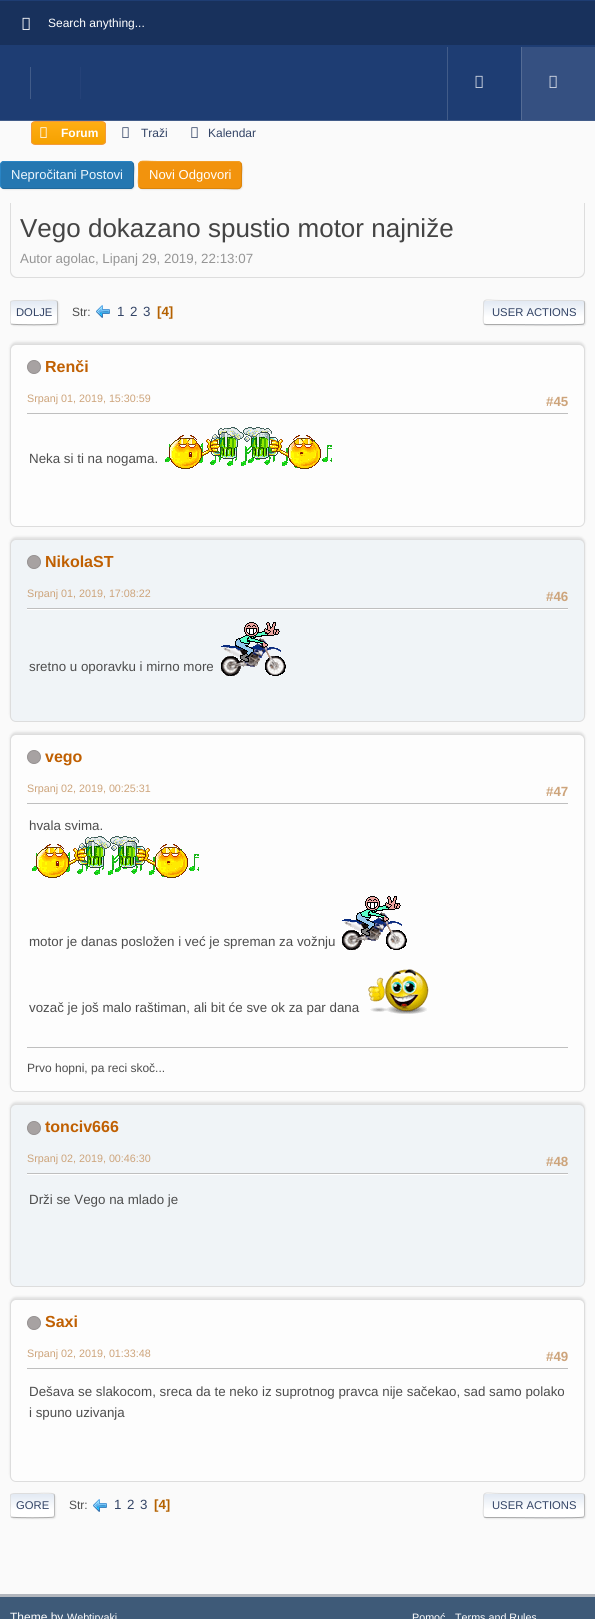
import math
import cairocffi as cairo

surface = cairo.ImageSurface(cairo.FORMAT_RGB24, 595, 1619)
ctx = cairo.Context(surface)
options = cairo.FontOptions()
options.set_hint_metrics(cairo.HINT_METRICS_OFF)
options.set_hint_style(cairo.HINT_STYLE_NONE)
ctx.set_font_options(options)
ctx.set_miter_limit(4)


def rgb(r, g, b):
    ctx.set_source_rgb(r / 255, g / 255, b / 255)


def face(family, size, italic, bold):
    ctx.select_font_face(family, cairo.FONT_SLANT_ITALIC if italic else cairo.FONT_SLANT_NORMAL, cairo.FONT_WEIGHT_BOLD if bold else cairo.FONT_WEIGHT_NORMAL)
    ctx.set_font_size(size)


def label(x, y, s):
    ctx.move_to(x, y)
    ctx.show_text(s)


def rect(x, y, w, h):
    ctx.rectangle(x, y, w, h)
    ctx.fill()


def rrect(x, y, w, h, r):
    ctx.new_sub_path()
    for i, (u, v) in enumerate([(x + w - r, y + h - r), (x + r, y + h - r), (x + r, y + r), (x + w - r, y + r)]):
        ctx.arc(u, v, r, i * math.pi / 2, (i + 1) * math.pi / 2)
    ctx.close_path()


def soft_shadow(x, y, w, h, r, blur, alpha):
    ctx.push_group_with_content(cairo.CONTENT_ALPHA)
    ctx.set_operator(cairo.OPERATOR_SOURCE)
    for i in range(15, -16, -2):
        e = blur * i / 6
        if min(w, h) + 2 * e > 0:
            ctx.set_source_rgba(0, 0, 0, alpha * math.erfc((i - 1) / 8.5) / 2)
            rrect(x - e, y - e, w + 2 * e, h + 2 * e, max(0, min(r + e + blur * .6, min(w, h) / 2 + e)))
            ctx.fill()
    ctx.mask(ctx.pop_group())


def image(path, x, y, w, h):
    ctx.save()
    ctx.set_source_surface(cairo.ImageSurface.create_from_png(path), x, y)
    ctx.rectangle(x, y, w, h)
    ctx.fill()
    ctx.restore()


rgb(250, 250, 250)
ctx.paint()
rgb(30, 61, 115)
rect(0, 0, 595, 120)
rgb(66, 92, 137)
rect(0, 120, 595, 1)
rgb(24, 49, 92)
rect(0, 1, 595, 44)
image('image0.png', 22, 17, 8, 13)
face('Liberation Sans', 12, 0, 0)
rgb(255, 255, 255)
label(48, 27, 'Search anything...')
rgb(66, 92, 137)
rect(30, 67, 1, 32)
rgb(37, 66, 120)
rect(80, 67, 1, 32)
rgb(66, 92, 137)
rect(447, 47, 1, 73)
image('image1.png', 475, 75, 8, 13)
rgb(53, 80, 129)
rect(522, 47, 73, 73)
rgb(85, 108, 149)
rect(521, 47, 1, 73)
image('image2.png', 549, 75, 8, 13)
ctx.save()
rrect(31, 121, 75, 24, 4)
ctx.clip()
gradient = cairo.LinearGradient(69, 122, 69, 144)
gradient.add_color_stop_rgba(0, 1, 0.682, 0.078, 1)
gradient.add_color_stop_rgba(1, 0.961, 0.631, 0, 1)
ctx.set_source(gradient)
rect(31, 122, 75, 22)
ctx.restore()
rrect(31.5, 121.5, 74, 23, 3.5)
rgb(244, 154, 58)
ctx.set_line_width(1)
ctx.stroke()
image('image3.png', 40, 127, 7, 11)
face('Liberation Sans', 12, 0, 1)
rgb(255, 255, 255)
label(61, 137, 'Forum')
image('image4.png', 122, 127, 7, 11)
face('Liberation Sans', 12, 0, 0)
rgb(51, 68, 102)
label(141, 137, 'Traži')
image('image4.png', 191, 127, 7, 11)
label(208, 137, 'Kalendar')
rgb(221, 221, 221)
soft_shadow(1, 162, 134, 28, 4, 0.5, 0.57)
rgb(37, 119, 177)
rrect(0, 161, 134, 28, 4)
ctx.fill()
ctx.new_path()
ctx.move_to(132.5, 162.5)
ctx.curve_to(134.5, 165, 133.5, 172.5, 133.5, 175)
ctx.line_to(133.5, 181.5)
ctx.curve_to(133.5, 184.5, 134, 188.5, 130, 188.5)
ctx.line_to(4, 188.5)
ctx.line_to(1.5, 187.5)
rgb(33, 105, 156)
ctx.stroke()
ctx.new_path()
ctx.move_to(1.5, 187.5)
ctx.curve_to(-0.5, 185, 0.5, 177.5, 0.5, 175)
ctx.line_to(0.5, 168.5)
ctx.curve_to(0.5, 165.5, 0, 161.5, 4, 161.5)
ctx.line_to(130, 161.5)
ctx.line_to(132.5, 162.5)
rgb(41, 133, 198)
ctx.stroke()
face('Liberation Sans', 13, 0, 0)
rgb(237, 246, 253)
label(11, 179, 'Nepročitani Postovi')
rgb(221, 221, 221)
soft_shadow(139, 162, 104, 28, 4, 0.5, 0.57)
rgb(242, 147, 13)
rrect(138, 161, 104, 28, 4)
ctx.fill()
ctx.new_path()
ctx.move_to(240.5, 162.5)
ctx.curve_to(242.5, 165, 241.5, 172.5, 241.5, 175)
ctx.curve_to(241.5, 192.5, 242.5, 188.5, 222, 188.5)
ctx.line_to(142, 188.5)
ctx.line_to(139.5, 187.5)
rgb(218, 132, 12)
ctx.stroke()
ctx.new_path()
ctx.move_to(139.5, 187.5)
ctx.curve_to(137.5, 185, 138.5, 177.5, 138.5, 175)
ctx.curve_to(138.5, 157.5, 137.5, 161.5, 158, 161.5)
ctx.line_to(238, 161.5)
ctx.line_to(240.5, 162.5)
rgb(243, 158, 37)
ctx.stroke()
rgb(255, 255, 255)
label(149, 179, 'Novi Odgovori')
rgb(221, 221, 221)
ctx.set_fill_rule(cairo.FILL_RULE_EVEN_ODD)
ctx.new_path()
ctx.move_to(10, 203)
ctx.line_to(585, 203)
ctx.line_to(585, 271)
ctx.curve_to(585, 275, 582, 278, 578, 278)
ctx.line_to(17, 278)
ctx.curve_to(13, 278, 10, 275, 10, 271)
ctx.close_path()
ctx.move_to(11, 203)
ctx.line_to(584, 203)
ctx.line_to(584, 271)
ctx.curve_to(584, 274, 581, 277, 578, 277)
ctx.line_to(17, 277)
ctx.curve_to(14, 277, 11, 274, 11, 271)
ctx.close_path()
ctx.fill()
face('Liberation Sans', 26, 0, 0)
rgb(68, 68, 68)
label(20, 237, 'Vego dokazano spustio motor najniže')
face('Liberation Sans', 13.35, 0, 0)
rgb(149, 149, 149)
label(20, 263, 'Autor agolac, Lipanj 29, 2019, 22:13:07')
rgb(221, 221, 221)
soft_shadow(11, 301, 48, 25, 3, 0.5, 0.57)
rgb(255, 255, 255)
rrect(10, 300, 48, 25, 3)
ctx.fill()
ctx.save()
ctx.set_fill_rule(cairo.FILL_RULE_WINDING)
rrect(10, 300, 48, 25, 3)
ctx.clip()
gradient = cairo.LinearGradient(34, 301, 34, 324)
gradient.add_color_stop_rgba(0, 0.886, 0.914, 0.953, 1)
gradient.add_color_stop_rgba(0.7, 1, 1, 1, 1)
ctx.set_source(gradient)
rect(10, 301, 48, 23)
ctx.restore()
ctx.new_path()
ctx.move_to(57, 301)
ctx.curve_to(57, 301.5, 57.5, 302.5, 57.5, 303)
ctx.line_to(57.5, 322)
ctx.curve_to(57.5, 322.5, 57, 323.5, 57, 324)
rgb(187, 187, 187)
ctx.stroke()
ctx.new_path()
ctx.move_to(57, 324)
ctx.curve_to(55.5, 325, 12.5, 325, 11, 324)
rgb(170, 170, 170)
ctx.stroke()
ctx.save()
ctx.set_fill_rule(cairo.FILL_RULE_WINDING)
ctx.rectangle(10, 293, 575, 39)
ctx.clip()
ctx.new_path()
ctx.move_to(11, 324)
ctx.curve_to(9.5, 322, 10.5, 315, 10.5, 312.5)
ctx.curve_to(10.5, 300, 8, 300.5, 20, 300.5)
ctx.line_to(41, 300.5)
ctx.curve_to(43.5, 300.5, 55, 299.5, 57, 301)
rgb(221, 221, 221)
ctx.stroke()
ctx.restore()
face('Liberation Sans', 11.25, 0, 0)
rgb(51, 68, 102)
label(16, 316, 'DOLJE')
face('Liberation Sans', 12, 0, 0)
rgb(77, 77, 77)
label(72, 316, 'Str:')
image('image5.png', 96, 305, 14, 13)
face('Liberation Sans', 13.35, 0, 0)
rgb(51, 68, 102)
label(117, 316, '1')
label(130, 316, '2')
label(143, 316, '3')
face('Liberation Sans', 13.35, 0, 1)
rgb(180, 97, 0)
label(157, 316, '[4]')
ctx.save()
ctx.new_path()
ctx.move_to(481, 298)
ctx.line_to(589, 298)
ctx.line_to(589, 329)
ctx.line_to(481, 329)
ctx.close_path()
ctx.move_to(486, 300)
ctx.line_to(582, 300)
ctx.curve_to(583.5, 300, 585, 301.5, 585, 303)
ctx.line_to(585, 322)
ctx.curve_to(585, 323.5, 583.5, 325, 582, 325)
ctx.line_to(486, 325)
ctx.curve_to(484.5, 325, 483, 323.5, 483, 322)
ctx.line_to(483, 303)
ctx.curve_to(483, 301.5, 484.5, 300, 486, 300)
ctx.close_path()
ctx.clip()
rgb(221, 221, 221)
soft_shadow(484, 301, 102, 25, 3, 0.5, 0.57)
ctx.restore()
rgb(255, 255, 255)
rrect(483, 300, 102, 25, 3)
ctx.fill()
ctx.save()
ctx.set_fill_rule(cairo.FILL_RULE_WINDING)
rrect(483, 300, 102, 25, 3)
ctx.clip()
gradient = cairo.LinearGradient(534, 301, 534, 324)
gradient.add_color_stop_rgba(0, 0.886, 0.914, 0.953, 1)
gradient.add_color_stop_rgba(0.7, 1, 1, 1, 1)
ctx.set_source(gradient)
rect(483, 301, 102, 23)
gradient = cairo.LinearGradient(534, 324, 534, 347)
gradient.add_color_stop_rgba(0, 0.886, 0.914, 0.953, 1)
gradient.add_color_stop_rgba(0.7, 1, 1, 1, 1)
ctx.set_source(gradient)
rect(483, 324, 102, 1)
ctx.restore()
ctx.new_path()
ctx.move_to(584, 301)
ctx.curve_to(584, 301.5, 584.5, 302.5, 584.5, 303)
ctx.line_to(584.5, 322)
ctx.curve_to(584.5, 322.5, 584, 323.5, 584, 324)
rgb(187, 187, 187)
ctx.stroke()
ctx.new_path()
ctx.move_to(584, 324)
ctx.line_to(583.5, 324)
ctx.curve_to(581.5, 325.5, 510.5, 324.5, 502, 324.5)
ctx.line_to(486, 324.5)
ctx.line_to(484, 324)
rgb(170, 170, 170)
ctx.stroke()
ctx.new_path()
ctx.move_to(484, 324)
ctx.curve_to(482.5, 322, 483.5, 315, 483.5, 312.5)
ctx.curve_to(483.5, 296, 482, 300.5, 502, 300.5)
ctx.line_to(582, 300.5)
ctx.line_to(584, 301)
rgb(221, 221, 221)
ctx.stroke()
face('Liberation Sans', 11.25, 0, 0)
rgb(51, 68, 102)
label(492, 316, 'USER ACTIONS')
rgb(0, 0, 0)
soft_shadow(10, 342, 575, 183, 6, 1, 0.1)
rgb(253, 253, 253)
rrect(10.5, 344.5, 574, 182, 5.5)
ctx.fill_preserve()
rgb(221, 221, 221)
ctx.stroke()
rgb(167, 162, 162)
ctx.arc(34, 367, 6.5, 0, 2 * math.pi)
ctx.fill_preserve()
rgb(150, 146, 146)
ctx.stroke()
face('Liberation Sans', 16, 0, 1)
rgb(192, 96, 2)
label(45, 372, 'Renči')
face('Liberation Sans', 10.75, 0, 0)
rgb(205, 164, 123)
label(27, 402, 'Srpanj 01, 2019, 15:30:59')
face('Liberation Sans', 13.35, 0, 1)
label(546, 406, '#45')
rgb(191, 191, 191)
rect(27, 413, 541, 1)
face('Liberation Sans', 13.35, 0, 0)
rgb(77, 77, 77)
label(29, 463, 'Neka si ti na nogama.')
image('image6.png', 165, 427, 167, 42)
rgb(0, 0, 0)
soft_shadow(10, 537, 575, 183, 6, 1, 0.1)
rgb(240, 244, 247)
rrect(10.5, 539.5, 574, 182, 5.5)
ctx.fill_preserve()
rgb(221, 221, 221)
ctx.stroke()
rgb(167, 162, 162)
ctx.arc(34, 562, 6.5, 0, 2 * math.pi)
ctx.fill_preserve()
rgb(150, 146, 146)
ctx.stroke()
face('Liberation Sans', 16, 0, 1)
rgb(192, 96, 2)
label(45, 567, 'NikolaST')
face('Liberation Sans', 10.75, 0, 0)
rgb(205, 164, 123)
label(27, 597, 'Srpanj 01, 2019, 17:08:22')
face('Liberation Sans', 13.35, 0, 1)
label(546, 601, '#46')
rgb(255, 255, 255)
rect(27, 609, 541, 1)
rgb(191, 191, 191)
rect(27, 608, 541, 1)
face('Liberation Sans', 13.35, 0, 0)
rgb(77, 77, 77)
label(29, 671, 'sretno u oporavku i mirno more')
image('image7.png', 221, 622, 65, 54)
rgb(0, 0, 0)
soft_shadow(10, 732, 575, 358, 6, 1, 0.1)
rgb(253, 253, 253)
rrect(10.5, 734.5, 574, 357, 5.5)
ctx.fill_preserve()
rgb(221, 221, 221)
ctx.stroke()
rgb(167, 162, 162)
ctx.arc(34, 757, 6.5, 0, 2 * math.pi)
ctx.fill_preserve()
rgb(150, 146, 146)
ctx.stroke()
face('Liberation Sans', 16, 0, 1)
rgb(192, 96, 2)
label(45, 762, 'vego')
face('Liberation Sans', 10.75, 0, 0)
rgb(205, 164, 123)
label(27, 792, 'Srpanj 02, 2019, 00:25:31')
face('Liberation Sans', 13.35, 0, 1)
label(546, 796, '#47')
rgb(191, 191, 191)
rect(27, 803, 541, 1)
face('Liberation Sans', 13.35, 0, 0)
rgb(77, 77, 77)
label(29, 830, 'hvala svima.')
image('image6.png', 32, 836, 167, 42)
label(29, 946, 'motor je danas posložen i već je spreman za vožnju')
image('image8.png', 342, 896, 65, 54)
label(29, 1012, 'vozač je još malo raštiman, ali bit će sve ok za par dana')
image('image9.png', 368, 969, 61, 45)
rgb(191, 191, 191)
rect(27, 1047, 541, 1)
face('Liberation Sans', 12, 0, 0)
rgb(77, 77, 77)
label(27, 1072, 'Prvo hopni, pa reci skoč...')
rgb(0, 0, 0)
soft_shadow(10, 1102, 575, 183, 6, 1, 0.1)
rgb(240, 244, 247)
rrect(10.5, 1104.5, 574, 182, 5.5)
ctx.fill_preserve()
rgb(221, 221, 221)
ctx.stroke()
rgb(167, 162, 162)
ctx.arc(34, 1128, 6.5, 0, 2 * math.pi)
ctx.fill_preserve()
rgb(150, 146, 146)
ctx.stroke()
face('Liberation Sans', 16, 0, 1)
rgb(192, 96, 2)
label(45, 1132, 'tonciv666')
face('Liberation Sans', 10.75, 0, 0)
rgb(205, 164, 123)
label(27, 1162, 'Srpanj 02, 2019, 00:46:30')
face('Liberation Sans', 13.35, 0, 1)
label(546, 1166, '#48')
rgb(255, 255, 255)
rect(27, 1174, 541, 1)
rgb(191, 191, 191)
rect(27, 1173, 541, 1)
face('Liberation Sans', 13.35, 0, 0)
rgb(77, 77, 77)
label(29, 1204, 'Drži se Vego na mlado je')
rgb(0, 0, 0)
soft_shadow(10, 1297, 575, 183, 6, 1, 0.1)
rgb(253, 253, 253)
rrect(10.5, 1299.5, 574, 182, 5.5)
ctx.fill_preserve()
rgb(221, 221, 221)
ctx.stroke()
rgb(167, 162, 162)
ctx.arc(34, 1323, 6.5, 0, 2 * math.pi)
ctx.fill_preserve()
rgb(150, 146, 146)
ctx.stroke()
face('Liberation Sans', 16, 0, 1)
rgb(192, 96, 2)
label(45, 1327, 'Saxi')
face('Liberation Sans', 10.75, 0, 0)
rgb(205, 164, 123)
label(27, 1357, 'Srpanj 02, 2019, 01:33:48')
face('Liberation Sans', 13.35, 0, 1)
label(546, 1361, '#49')
rgb(191, 191, 191)
rect(27, 1368, 541, 1)
face('Liberation Sans', 13.35, 0, 0)
rgb(77, 77, 77)
label(29, 1396, 'Dešava se slakocom, sreca da te neko iz suprotnog pravca nije sačekao, sad samo polako')
label(29, 1417, 'i spuno uzivanja')
rgb(221, 221, 221)
soft_shadow(11, 1494, 45, 25, 3, 0.5, 0.57)
rgb(255, 255, 255)
rrect(10, 1493, 45, 25, 3)
ctx.fill()
ctx.save()
ctx.set_fill_rule(cairo.FILL_RULE_WINDING)
rrect(10, 1493, 45, 25, 3)
ctx.clip()
gradient = cairo.LinearGradient(33, 1494, 33, 1517)
gradient.add_color_stop_rgba(0, 0.886, 0.914, 0.953, 1)
gradient.add_color_stop_rgba(0.7, 1, 1, 1, 1)
ctx.set_source(gradient)
rect(10, 1494, 45, 23)
ctx.restore()
ctx.new_path()
ctx.move_to(54, 1494)
ctx.curve_to(54, 1494.5, 54.5, 1495.5, 54.5, 1496)
ctx.line_to(54.5, 1515)
ctx.curve_to(54.5, 1515.5, 54, 1516.5, 54, 1517)
rgb(187, 187, 187)
ctx.stroke()
ctx.new_path()
ctx.move_to(54, 1517)
ctx.curve_to(52.5, 1518, 12.5, 1518, 11, 1517)
rgb(170, 170, 170)
ctx.stroke()
ctx.save()
ctx.set_fill_rule(cairo.FILL_RULE_WINDING)
ctx.rectangle(10, 1486, 575, 39)
ctx.clip()
ctx.new_path()
ctx.move_to(11, 1517)
ctx.curve_to(9.5, 1515, 10.5, 1508, 10.5, 1505.5)
ctx.curve_to(10.5, 1493, 8, 1493.5, 19.5, 1493.5)
ctx.line_to(32.5, 1493.5)
ctx.curve_to(35.5, 1493.5, 52, 1492.5, 54, 1494)
rgb(221, 221, 221)
ctx.stroke()
ctx.restore()
face('Liberation Sans', 11.25, 0, 0)
rgb(51, 68, 102)
label(16, 1509, 'GORE')
face('Liberation Sans', 12, 0, 0)
rgb(77, 77, 77)
label(69, 1509, 'Str:')
image('image5.png', 93, 1499, 14, 13)
face('Liberation Sans', 13.35, 0, 0)
rgb(51, 68, 102)
label(114, 1509, '1')
label(127, 1509, '2')
label(140, 1509, '3')
face('Liberation Sans', 13.35, 0, 1)
rgb(180, 97, 0)
label(154, 1509, '[4]')
ctx.save()
ctx.new_path()
ctx.move_to(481, 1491)
ctx.line_to(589, 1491)
ctx.line_to(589, 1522)
ctx.line_to(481, 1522)
ctx.close_path()
ctx.move_to(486, 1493)
ctx.line_to(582, 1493)
ctx.curve_to(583.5, 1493, 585, 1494.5, 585, 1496)
ctx.line_to(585, 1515)
ctx.curve_to(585, 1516.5, 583.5, 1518, 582, 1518)
ctx.line_to(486, 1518)
ctx.curve_to(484.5, 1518, 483, 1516.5, 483, 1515)
ctx.line_to(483, 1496)
ctx.curve_to(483, 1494.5, 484.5, 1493, 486, 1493)
ctx.close_path()
ctx.clip()
rgb(221, 221, 221)
soft_shadow(484, 1494, 102, 25, 3, 0.5, 0.57)
ctx.restore()
rgb(255, 255, 255)
rrect(483, 1493, 102, 25, 3)
ctx.fill()
ctx.save()
ctx.set_fill_rule(cairo.FILL_RULE_WINDING)
rrect(483, 1493, 102, 25, 3)
ctx.clip()
gradient = cairo.LinearGradient(534, 1494, 534, 1517)
gradient.add_color_stop_rgba(0, 0.886, 0.914, 0.953, 1)
gradient.add_color_stop_rgba(0.7, 1, 1, 1, 1)
ctx.set_source(gradient)
rect(483, 1494, 102, 23)
gradient = cairo.LinearGradient(534, 1517, 534, 1540)
gradient.add_color_stop_rgba(0, 0.886, 0.914, 0.953, 1)
gradient.add_color_stop_rgba(0.7, 1, 1, 1, 1)
ctx.set_source(gradient)
rect(483, 1517, 102, 1)
ctx.restore()
ctx.new_path()
ctx.move_to(584, 1494)
ctx.curve_to(584, 1494.5, 584.5, 1495.5, 584.5, 1496)
ctx.line_to(584.5, 1515)
ctx.curve_to(584.5, 1515.5, 584, 1516.5, 584, 1517)
rgb(187, 187, 187)
ctx.stroke()
ctx.new_path()
ctx.move_to(584, 1517)
ctx.line_to(583.5, 1517)
ctx.curve_to(581.5, 1518.5, 510.5, 1517.5, 502, 1517.5)
ctx.line_to(486, 1517.5)
ctx.line_to(484, 1517)
rgb(170, 170, 170)
ctx.stroke()
ctx.new_path()
ctx.move_to(484, 1517)
ctx.curve_to(482.5, 1515, 483.5, 1508, 483.5, 1505.5)
ctx.curve_to(483.5, 1489, 482, 1493.5, 502, 1493.5)
ctx.line_to(582, 1493.5)
ctx.line_to(584, 1494)
rgb(221, 221, 221)
ctx.stroke()
face('Liberation Sans', 11.25, 0, 0)
rgb(51, 68, 102)
label(492, 1509, 'USER ACTIONS')
rgb(62, 90, 120)
rect(0, 1597, 595, 22)
rgb(178, 182, 189)
rect(0, 1594, 595, 3)
face('Liberation Sans', 12, 0, 0)
rgb(255, 255, 255)
label(10, 1621, 'Theme by')
face('Liberation Sans', 10.75, 0, 0)
label(67, 1621, 'Webtiryaki')
label(412, 1621, 'Pomoć')
label(455, 1621, 'Terms and Rules')
surface.write_to_png('render.png')
